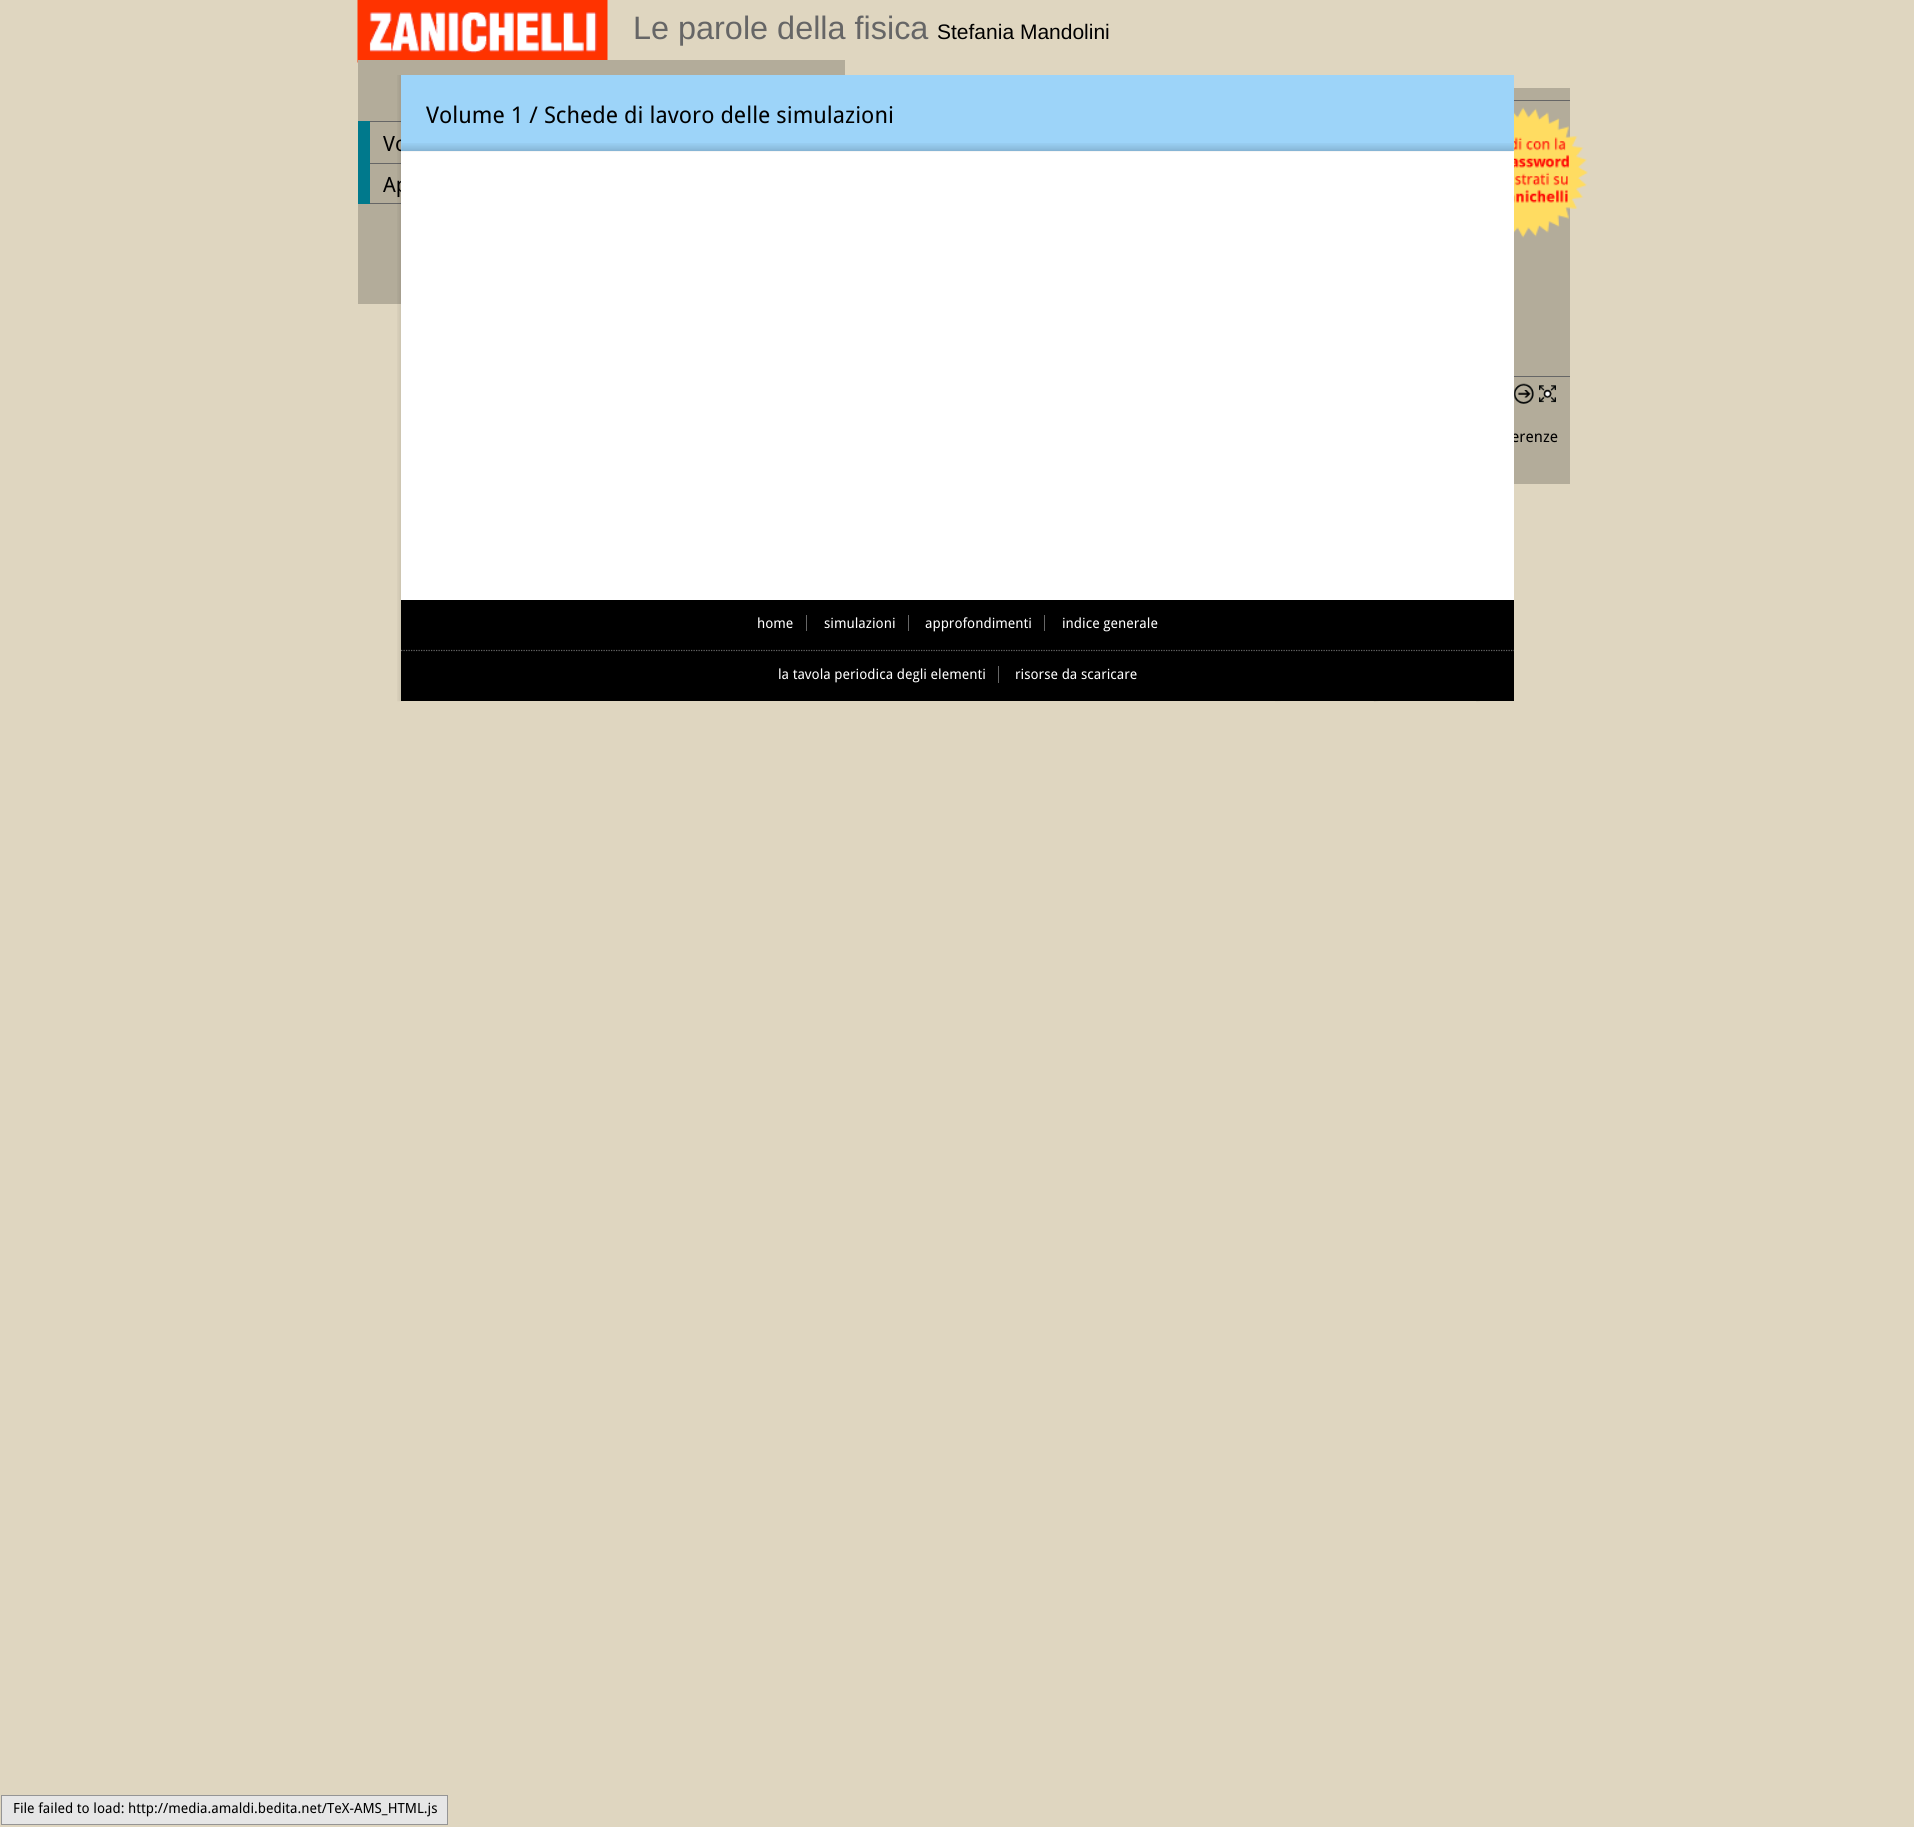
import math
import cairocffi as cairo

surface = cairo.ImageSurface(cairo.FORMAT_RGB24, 1914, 1827)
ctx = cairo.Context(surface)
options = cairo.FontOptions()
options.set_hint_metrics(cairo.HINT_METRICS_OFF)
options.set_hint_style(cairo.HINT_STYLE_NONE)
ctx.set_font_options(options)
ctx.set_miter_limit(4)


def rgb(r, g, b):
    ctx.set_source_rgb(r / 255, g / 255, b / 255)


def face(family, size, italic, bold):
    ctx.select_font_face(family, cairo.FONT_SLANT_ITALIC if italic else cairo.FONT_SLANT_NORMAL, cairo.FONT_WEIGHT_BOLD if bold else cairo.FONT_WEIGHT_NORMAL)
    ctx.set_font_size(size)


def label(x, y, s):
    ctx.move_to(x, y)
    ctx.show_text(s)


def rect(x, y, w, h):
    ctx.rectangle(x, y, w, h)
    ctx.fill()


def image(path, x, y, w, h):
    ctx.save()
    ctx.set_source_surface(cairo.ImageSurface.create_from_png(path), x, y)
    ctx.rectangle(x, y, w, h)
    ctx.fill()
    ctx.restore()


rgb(223, 214, 192)
ctx.paint()
image('image0.png', 357, 0, 251, 63)
face('Liberation Sans', 32.4, 0, 0)
rgb(102, 102, 102)
label(633, 39, 'Le parole della fisica')
face('Liberation Sans', 21, 0, 0)
rgb(0, 0, 0)
label(937, 39, 'Stefania Mandolini')
rgb(179, 172, 154)
rect(358, 60, 487, 244)
rgb(0, 121, 140)
rect(358, 121, 12, 83)
rgb(102, 102, 102)
rect(370, 121, 31, 1)
rect(370, 163, 31, 1)
face('Droid Sans', 21, 0, 0)
rgb(0, 0, 0)
label(383, 151, 'Vo')
rgb(102, 102, 102)
rect(370, 203, 31, 1)
rgb(0, 0, 0)
label(383, 192, 'Ap')
image('image1.png', 397, 75, 1083, 627)
rgb(179, 172, 154)
rect(1514, 88, 56, 396)
face('Droid Sans', 15.5, 0, 0)
rgb(0, 0, 0)
label(1511, 442, 'erenze')
rgb(255, 255, 255)
rect(401, 151, 1113, 449)
rgb(157, 212, 249)
rect(401, 75, 1113, 76)
image('image2.png', 401, 143, 1113, 9)
face('Droid Sans', 23, 0, 0)
rgb(0, 0, 0)
label(426, 123, 'Volume 1 / Schede di lavoro delle simulazioni')
rect(401, 600, 1113, 101)
face('Droid Sans', 14, 0, 0)
rgb(255, 255, 255)
label(757, 628, 'home')
rgb(102, 102, 102)
rect(806, 615, 1, 16)
rgb(255, 255, 255)
label(824, 628, 'simulazioni')
rgb(102, 102, 102)
rect(908, 615, 1, 16)
rgb(255, 255, 255)
label(925, 628, 'approfondimenti')
rgb(102, 102, 102)
rect(1044, 615, 1, 16)
rgb(255, 255, 255)
label(1062, 628, 'indice generale')
ctx.new_path()
ctx.move_to(401, 650.5)
ctx.line_to(1514, 650.5)
rgb(102, 102, 102)
ctx.set_line_width(1.2)
ctx.set_dash([1.25, 1.25])
ctx.stroke()
rgb(255, 255, 255)
label(778, 679, 'la tavola periodica degli elementi')
rgb(102, 102, 102)
rect(998, 666, 1, 17)
rgb(255, 255, 255)
label(1015, 679, 'risorse da scaricare')
rgb(102, 102, 102)
rect(1514, 100, 56, 1)
image('image3.png', 1514, 107, 74, 131)
rect(1514, 376, 56, 1)
image('image4.png', 1514, 383, 20, 21)
image('image5.png', 1539, 385, 17, 18)
rgb(230, 230, 230)
ctx.rectangle(1.5, 1795.5, 446, 29)
ctx.fill_preserve()
rgb(149, 149, 149)
ctx.set_line_width(1)
ctx.set_dash([])
ctx.stroke()
rgb(0, 0, 0)
label(13, 1813, 'File failed to load: http://media.amaldi.bedita.net/TeX-AMS_HTML.js')
surface.write_to_png('render.png')
